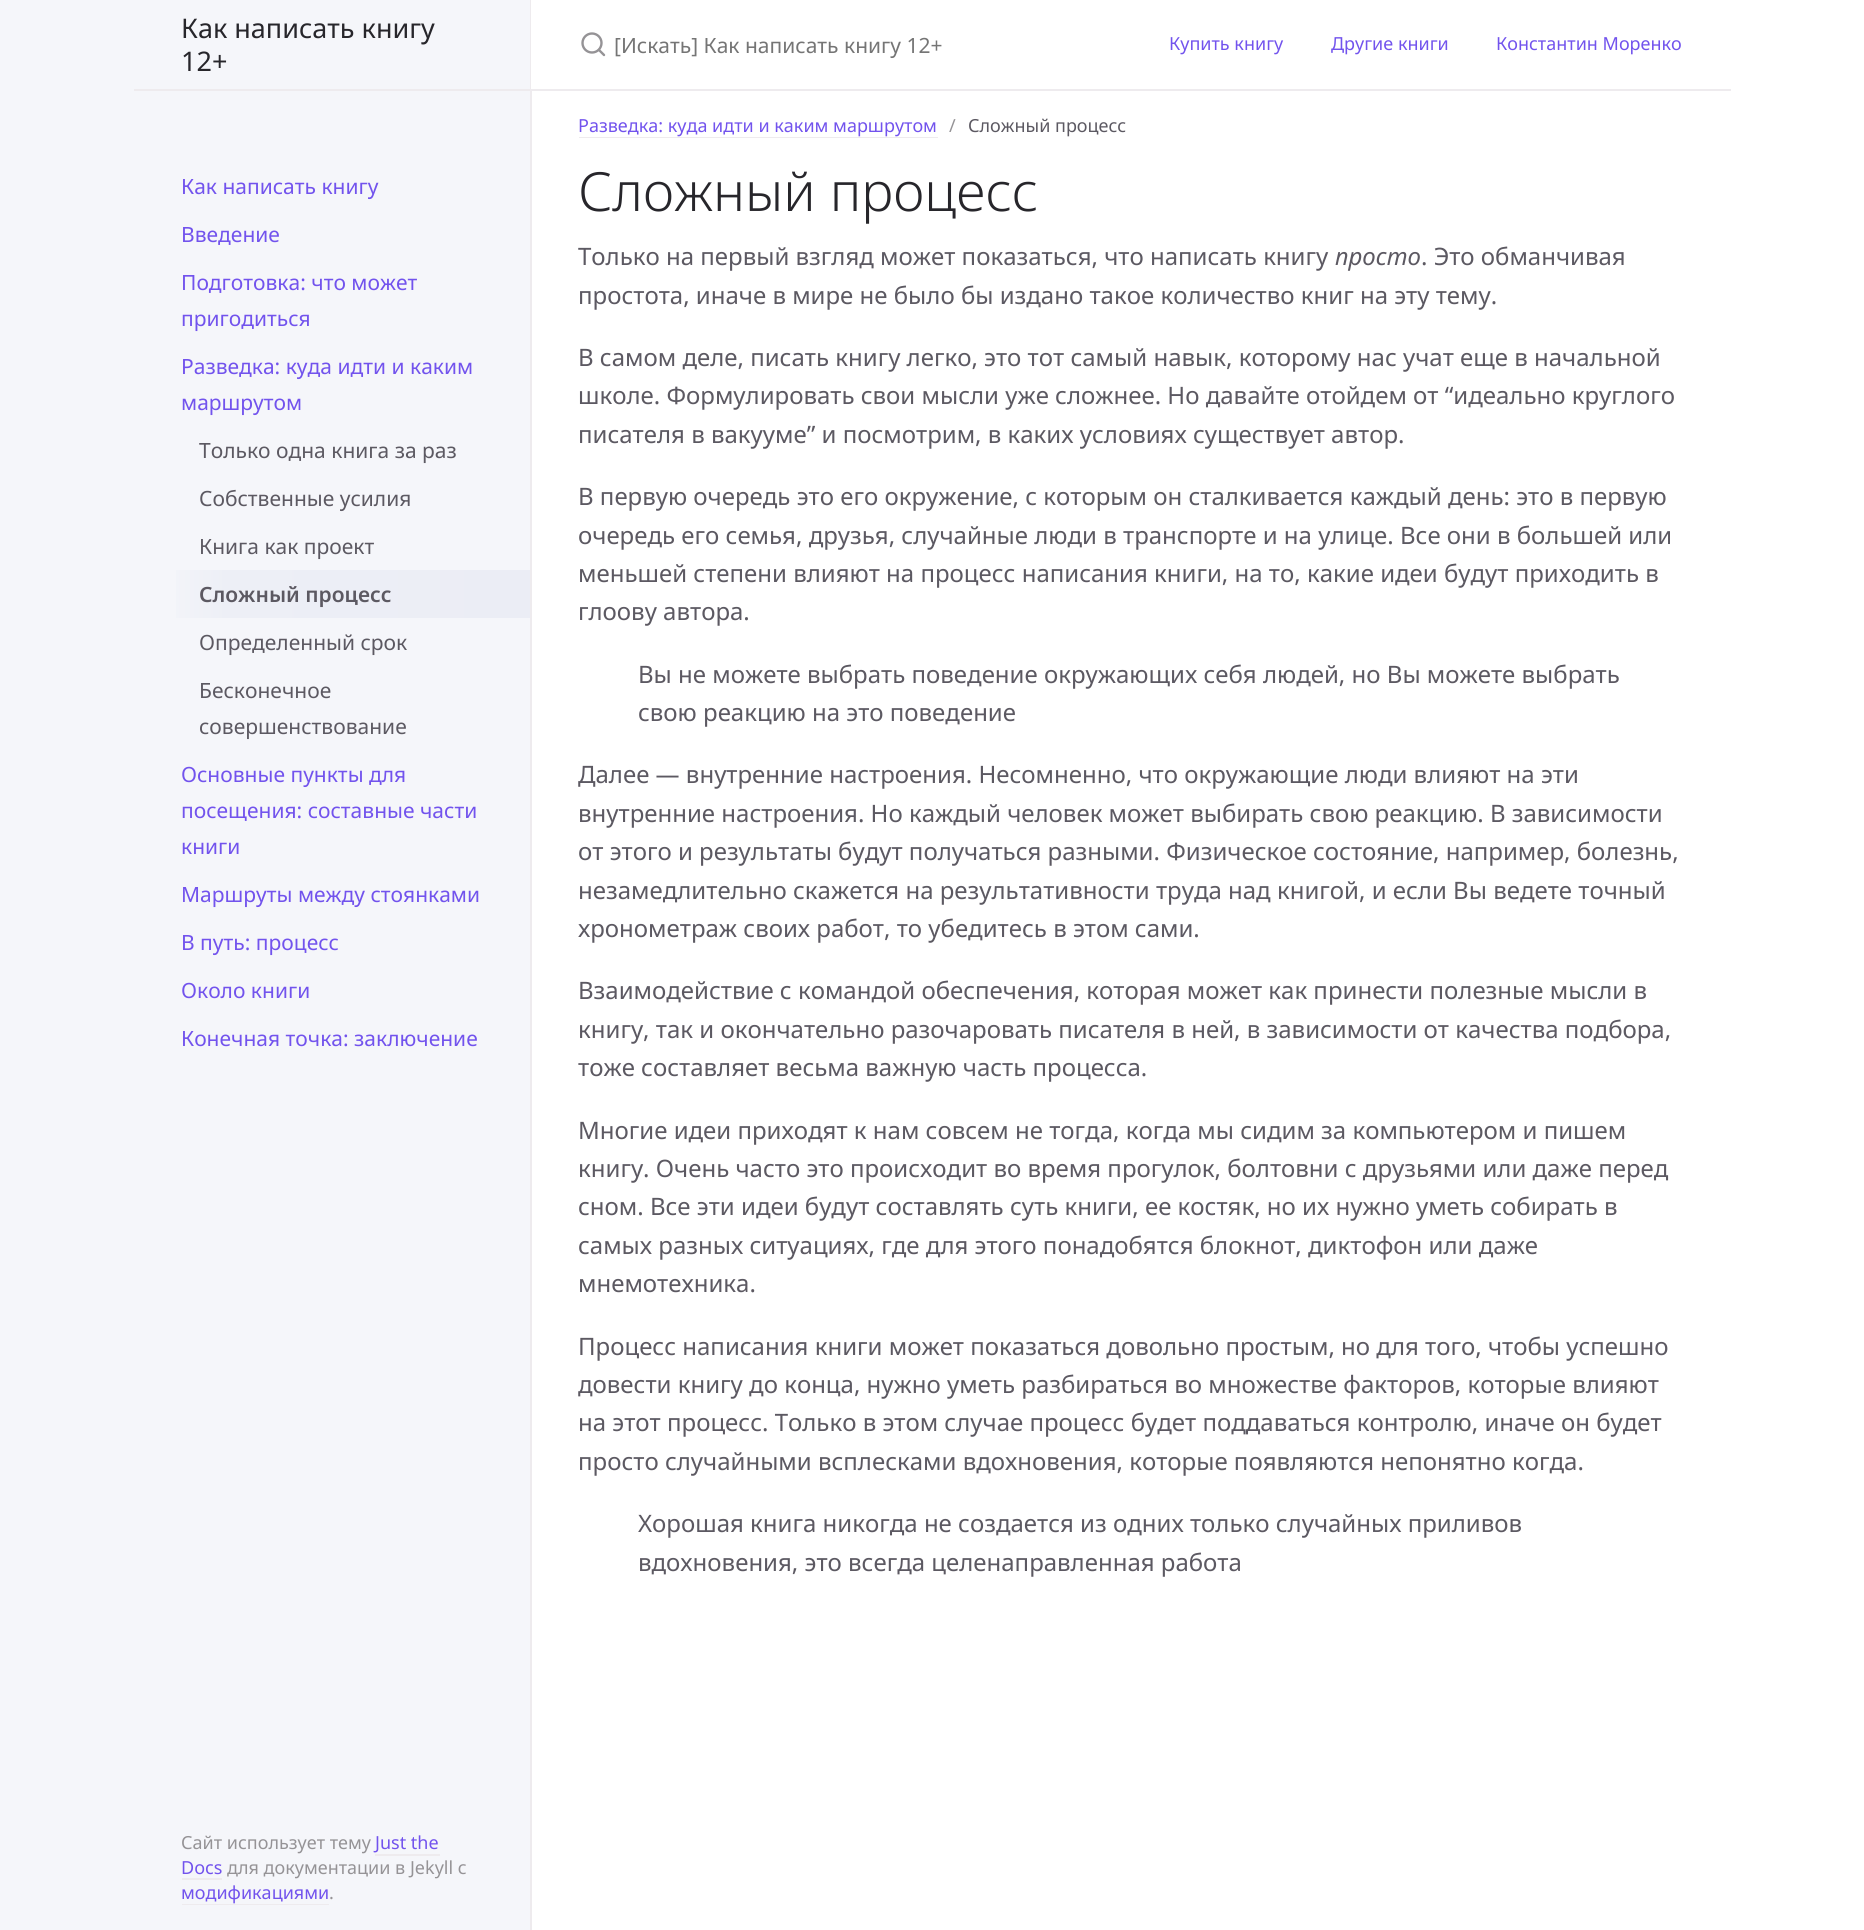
import math
import cairocffi as cairo

surface = cairo.ImageSurface(cairo.FORMAT_RGB24, 1864, 1930)
ctx = cairo.Context(surface)
options = cairo.FontOptions()
options.set_hint_metrics(cairo.HINT_METRICS_OFF)
options.set_hint_style(cairo.HINT_STYLE_NONE)
ctx.set_font_options(options)
ctx.set_miter_limit(4)


def rgb(r, g, b):
    ctx.set_source_rgb(r / 255, g / 255, b / 255)


def face(family, size, italic, bold):
    ctx.select_font_face(family, cairo.FONT_SLANT_ITALIC if italic else cairo.FONT_SLANT_NORMAL, cairo.FONT_WEIGHT_BOLD if bold else cairo.FONT_WEIGHT_NORMAL)
    ctx.set_font_size(size)


def label(x, y, s):
    ctx.move_to(x, y)
    ctx.show_text(s)


def rect(x, y, w, h):
    ctx.rectangle(x, y, w, h)
    ctx.fill()


rgb(255, 255, 255)
ctx.paint()
rgb(245, 246, 250)
rect(0, 0, 530, 1930)
rgb(238, 235, 238)
rect(530, 0, 2, 1930)
rect(134, 89, 396, 2)
face('Noto Sans', 27, 0, 0)
rgb(39, 38, 43)
label(181, 38, 'Как написать книгу')
label(181, 71, '12+')
face('Noto Sans', 21, 0, 0)
rgb(114, 83, 237)
label(181, 194, 'Как написать книгу')
label(181, 242, 'Введение')
label(181, 290, 'Подготовка: что может')
label(181, 326, 'пригодиться')
label(181, 374, 'Разведка: куда идти и каким')
label(181, 410, 'маршрутом')
rgb(92, 89, 98)
label(199, 458, 'Только одна книга за раз')
label(199, 506, 'Собственные усилия')
label(199, 554, 'Книга как проект')
gradient = cairo.LinearGradient(530, 594, 152, 594)
gradient.add_color_stop_rgba(0, 0.922, 0.929, 0.961, 1)
gradient.add_color_stop_rgba(0.8, 0.929, 0.937, 0.965, 1)
gradient.add_color_stop_rgba(1, 0.961, 0.965, 0.98, 1)
ctx.set_source(gradient)
rect(176, 570, 354, 48)
face('Noto Sans SemiBold', 21, 0, 0)
rgb(92, 89, 98)
label(199, 602, 'Сложный процесс')
face('Noto Sans', 21, 0, 0)
label(199, 650, 'Определенный срок')
label(199, 698, 'Бесконечное')
label(199, 734, 'совершенствование')
rgb(114, 83, 237)
label(181, 782, 'Основные пункты для')
label(181, 818, 'посещения: составные части')
label(181, 854, 'книги')
label(181, 902, 'Маршруты между стоянками')
label(181, 950, 'В путь: процесс')
label(181, 998, 'Около книги')
label(181, 1046, 'Конечная точка: заключение')
face('Noto Sans', 18, 0, 0)
rgb(149, 147, 150)
label(181, 1849, 'Сайт использует тему')
rgb(114, 83, 237)
label(375, 1849, 'Just the')
rgb(238, 235, 238)
rect(375, 1854, 65, 2)
rgb(114, 83, 237)
label(181, 1874, 'Docs')
rgb(238, 235, 238)
rect(182, 1878, 40, 2)
rgb(149, 147, 150)
label(227, 1874, 'для документации в Jekyll с')
rgb(114, 83, 237)
label(181, 1899, 'модификациями')
rgb(238, 235, 238)
rect(182, 1904, 147, 1)
rgb(149, 147, 150)
label(329, 1899, '.')
rgb(255, 255, 255)
rect(531, 0, 1, 89)
rgb(238, 235, 238)
rect(531, 89, 1200, 2)
ctx.new_path()
ctx.arc(592, 43, 9.5, 0, 2 * math.pi)
rgb(149, 147, 150)
ctx.set_line_width(2.4)
ctx.stroke()
ctx.new_path()
ctx.move_to(604, 55)
ctx.line_to(599, 50)
ctx.set_line_cap(cairo.LINE_CAP_ROUND)
ctx.set_line_join(cairo.LINE_JOIN_ROUND)
ctx.stroke()
face('Noto Sans', 21, 0, 0)
rgb(117, 117, 117)
label(614, 53, '[Искать] Как написать книгу 12+')
face('Noto Sans', 18, 0, 0)
rgb(114, 83, 237)
label(1169, 50, 'Купить книгу')
label(1331, 50, 'Другие книги')
label(1496, 50, 'Константин Моренко')
label(578, 132, 'Разведка: куда идти и каким маршрутом')
rgb(238, 235, 238)
rect(579, 137, 359, 1)
rgb(149, 147, 150)
label(949, 132, '/')
rgb(92, 89, 98)
label(968, 132, 'Сложный процесс')
face('Noto Sans Light', 54, 0, 0)
rgb(39, 38, 43)
label(578, 211, 'Сложный процесс')
face('Noto Sans', 24, 0, 0)
rgb(92, 89, 98)
label(578, 265, 'Только на первый взгляд может показаться, что написать книгу')
face('Noto Sans', 24, 1, 0)
label(1335, 265, 'просто')
face('Noto Sans', 24, 0, 0)
label(1421, 265, '. Это обманчивая')
label(578, 304, 'простота, иначе в мире не было бы издано такое количество книг на эту тему.')
label(578, 366, 'В самом деле, писать книгу легко, это тот самый навык, которому нас учат еще в начальной')
label(578, 404, 'школе. Формулировать свои мысли уже сложнее. Но давайте отойдем от “идеально круглого')
label(578, 443, 'писателя в вакууме” и посмотрим, в каких условиях существует автор.')
label(578, 505, 'В первую очередь это его окружение, с которым он сталкивается каждый день: это в первую')
label(578, 544, 'очередь его семья, друзья, случайные люди в транспорте и на улице. Все они в большей или')
label(578, 582, 'меньшей степени влияют на процесс написания книги, на то, какие идеи будут приходить в')
label(578, 620, 'глоову автора.')
label(638, 683, 'Вы не можете выбрать поведение окружающих себя людей, но Вы можете выбрать')
label(638, 721, 'свою реакцию на это поведение')
label(578, 783, 'Далее — внутренние настроения. Несомненно, что окружающие люди влияют на эти')
label(578, 822, 'внутренние настроения. Но каждый человек может выбирать свою реакцию. В зависимости')
label(578, 860, 'от этого и результаты будут получаться разными. Физическое состояние, например, болезнь,')
label(578, 899, 'незамедлительно скажется на результативности труда над книгой, и если Вы ведете точный')
label(578, 937, 'хронометраж своих работ, то убедитесь в этом сами.')
label(578, 999, 'Взаимодействие с командой обеспечения, которая может как принести полезные мысли в')
label(578, 1038, 'книгу, так и окончательно разочаровать писателя в ней, в зависимости от качества подбора,')
label(578, 1076, 'тоже составляет весьма важную часть процесса.')
label(578, 1139, 'Многие идеи приходят к нам совсем не тогда, когда мы сидим за компьютером и пишем')
label(578, 1177, 'книгу. Очень часто это происходит во время прогулок, болтовни с друзьями или даже перед')
label(578, 1215, 'сном. Все эти идеи будут составлять суть книги, ее костяк, но их нужно уметь собирать в')
label(578, 1254, 'самых разных ситуациях, где для этого понадобятся блокнот, диктофон или даже')
label(578, 1292, 'мнемотехника.')
label(578, 1355, 'Процесс написания книги может показаться довольно простым, но для того, чтобы успешно')
label(578, 1393, 'довести книгу до конца, нужно уметь разбираться во множестве факторов, которые влияют')
label(578, 1431, 'на этот процесс. Только в этом случае процесс будет поддаваться контролю, иначе он будет')
label(578, 1470, 'просто случайными всплесками вдохновения, которые появляются непонятно когда.')
label(638, 1532, 'Хорошая книга никогда не создается из одних только случайных приливов')
label(638, 1571, 'вдохновения, это всегда целенаправленная работа')
surface.write_to_png('render.png')
